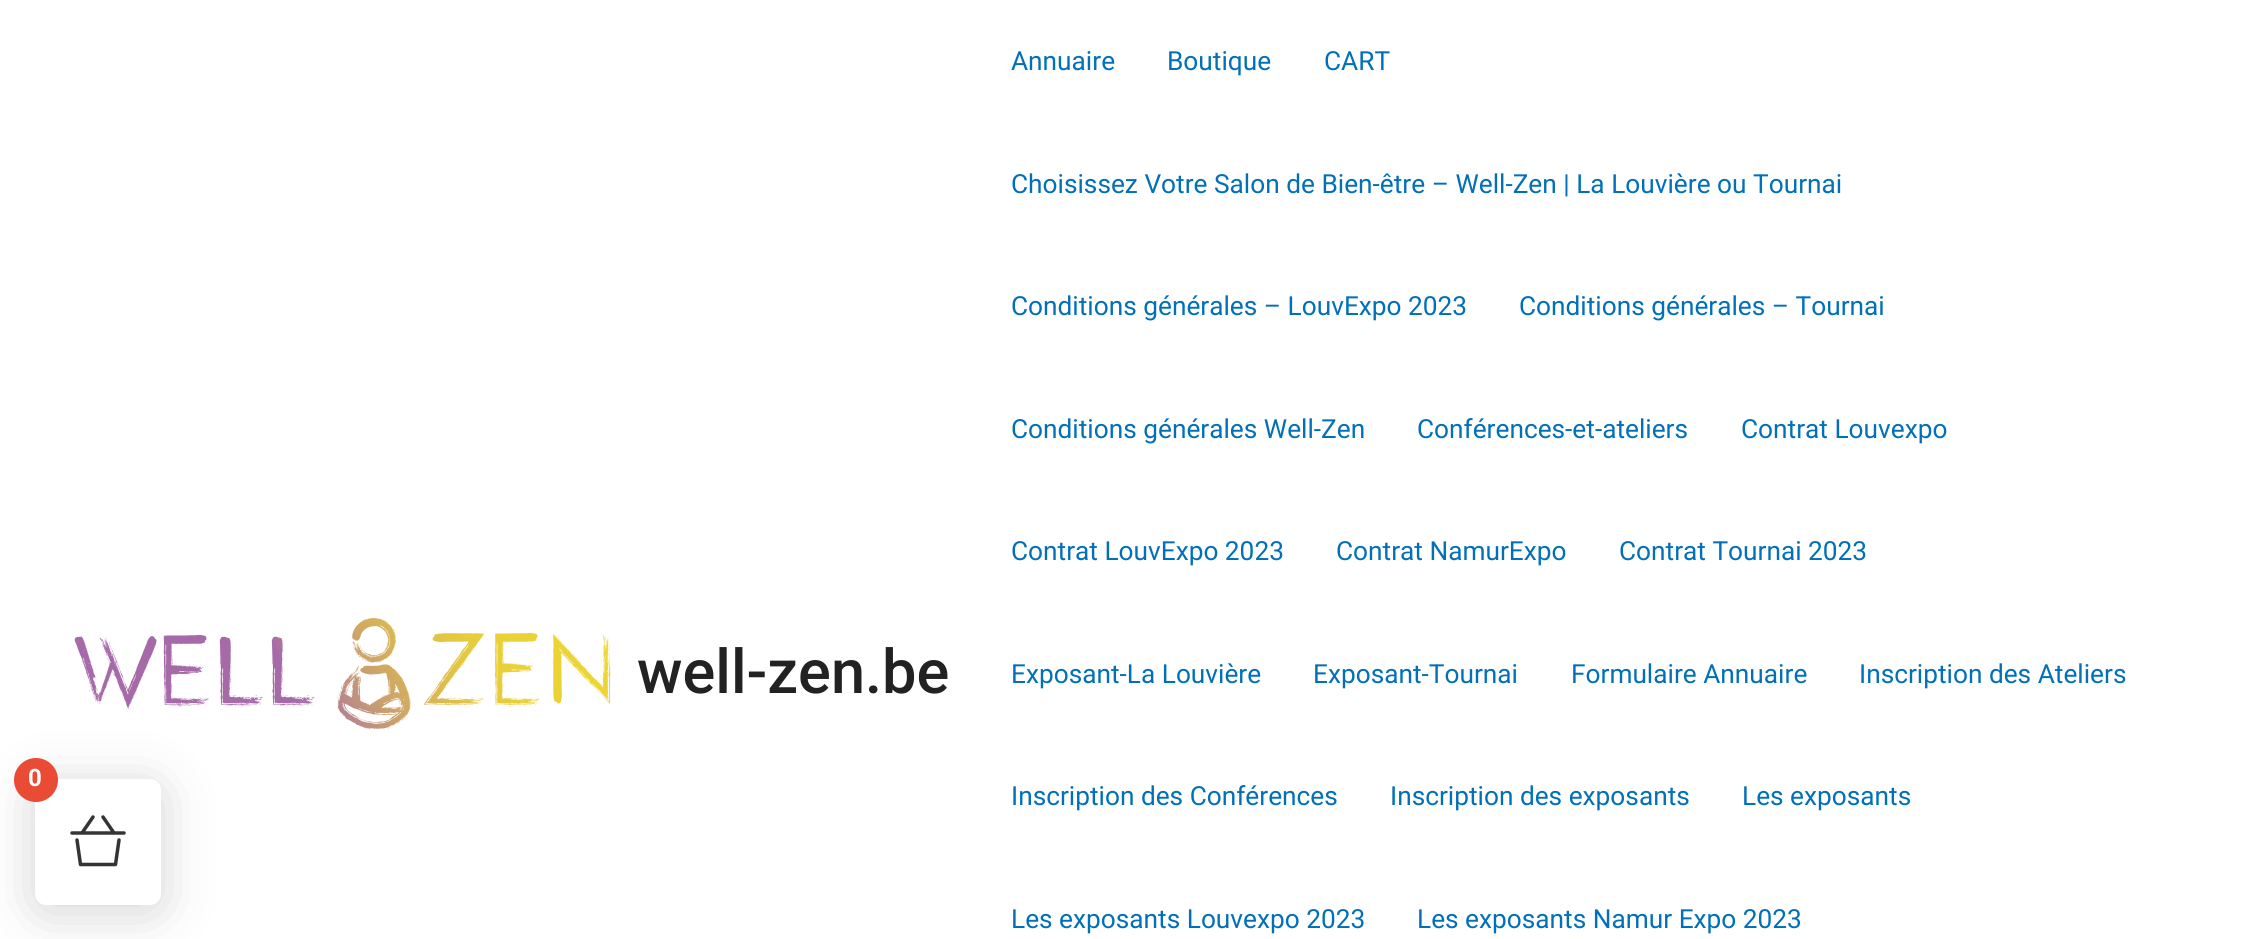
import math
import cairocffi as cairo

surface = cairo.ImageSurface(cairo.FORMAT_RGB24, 2243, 939)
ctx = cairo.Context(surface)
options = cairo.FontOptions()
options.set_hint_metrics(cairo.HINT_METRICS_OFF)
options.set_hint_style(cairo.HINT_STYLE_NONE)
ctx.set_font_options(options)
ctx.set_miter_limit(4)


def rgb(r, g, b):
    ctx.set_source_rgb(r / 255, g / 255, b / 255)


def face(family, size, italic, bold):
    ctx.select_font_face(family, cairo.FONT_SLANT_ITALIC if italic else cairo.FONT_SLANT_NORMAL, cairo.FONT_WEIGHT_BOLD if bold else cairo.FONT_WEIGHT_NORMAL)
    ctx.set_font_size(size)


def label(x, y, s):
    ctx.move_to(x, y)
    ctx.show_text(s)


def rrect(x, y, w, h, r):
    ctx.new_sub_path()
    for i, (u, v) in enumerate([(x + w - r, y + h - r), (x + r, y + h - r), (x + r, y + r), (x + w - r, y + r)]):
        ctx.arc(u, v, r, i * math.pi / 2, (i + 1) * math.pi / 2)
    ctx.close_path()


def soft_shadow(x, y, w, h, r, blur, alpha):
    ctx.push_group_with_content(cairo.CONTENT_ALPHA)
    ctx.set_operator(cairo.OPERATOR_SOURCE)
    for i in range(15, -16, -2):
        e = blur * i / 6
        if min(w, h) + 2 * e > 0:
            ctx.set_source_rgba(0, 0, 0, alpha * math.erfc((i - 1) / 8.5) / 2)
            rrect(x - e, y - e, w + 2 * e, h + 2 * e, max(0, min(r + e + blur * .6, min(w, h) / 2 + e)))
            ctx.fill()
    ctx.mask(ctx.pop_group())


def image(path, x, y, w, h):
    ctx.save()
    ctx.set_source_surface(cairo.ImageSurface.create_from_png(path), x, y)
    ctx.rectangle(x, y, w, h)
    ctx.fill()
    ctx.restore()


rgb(255, 255, 255)
ctx.paint()
image('image0.png', 74, 618, 537, 112)
rgb(0, 0, 0)
soft_shadow(35, 786, 126, 126, 11, 26, 0.17)
rgb(255, 255, 255)
rrect(35, 779, 126, 126, 11)
ctx.fill()
rgb(233, 75, 53)
ctx.arc(36, 780, 22, 0, 2 * math.pi)
ctx.fill()
face('Roboto', 24, 0, 1)
rgb(255, 255, 255)
label(28, 786, '0')
ctx.new_path()
ctx.move_to(82, 833)
ctx.line_to(93, 817)
ctx.move_to(114, 833)
ctx.line_to(103, 817)
ctx.move_to(119, 840)
ctx.line_to(115.5, 864.5)
ctx.line_to(80.5, 864.5)
ctx.line_to(77, 840)
ctx.move_to(72, 833)
ctx.line_to(124, 833)
rgb(52, 52, 52)
ctx.set_line_width(3.5)
ctx.set_line_cap(cairo.LINE_CAP_ROUND)
ctx.set_line_join(cairo.LINE_JOIN_ROUND)
ctx.stroke()
face('Roboto Medium', 61.25, 0, 0)
rgb(34, 34, 34)
label(637, 693, 'well-zen.be')
face('Roboto', 26.25, 0, 0)
rgb(1, 112, 185)
label(1011, 70, 'Annuaire')
label(1167, 70, 'Boutique')
label(1324, 70, 'CART')
label(1011, 193, 'Choisissez Votre Salon de Bien-être – Well-Zen | La Louvière ou Tournai')
label(1011, 315, 'Conditions générales – LouvExpo 2023')
label(1519, 315, 'Conditions générales – Tournai')
label(1011, 438, 'Conditions générales Well-Zen')
label(1417, 438, 'Conférences-et-ateliers')
label(1741, 438, 'Contrat Louvexpo')
label(1011, 560, 'Contrat LouvExpo 2023')
label(1336, 560, 'Contrat NamurExpo')
label(1619, 560, 'Contrat Tournai 2023')
label(1011, 683, 'Exposant-La Louvière')
label(1313, 683, 'Exposant-Tournai')
label(1571, 683, 'Formulaire Annuaire')
label(1859, 683, 'Inscription des Ateliers')
label(1011, 805, 'Inscription des Conférences')
label(1390, 805, 'Inscription des exposants')
label(1742, 805, 'Les exposants')
label(1011, 928, 'Les exposants Louvexpo 2023')
label(1417, 928, 'Les exposants Namur Expo 2023')
surface.write_to_png('render.png')
